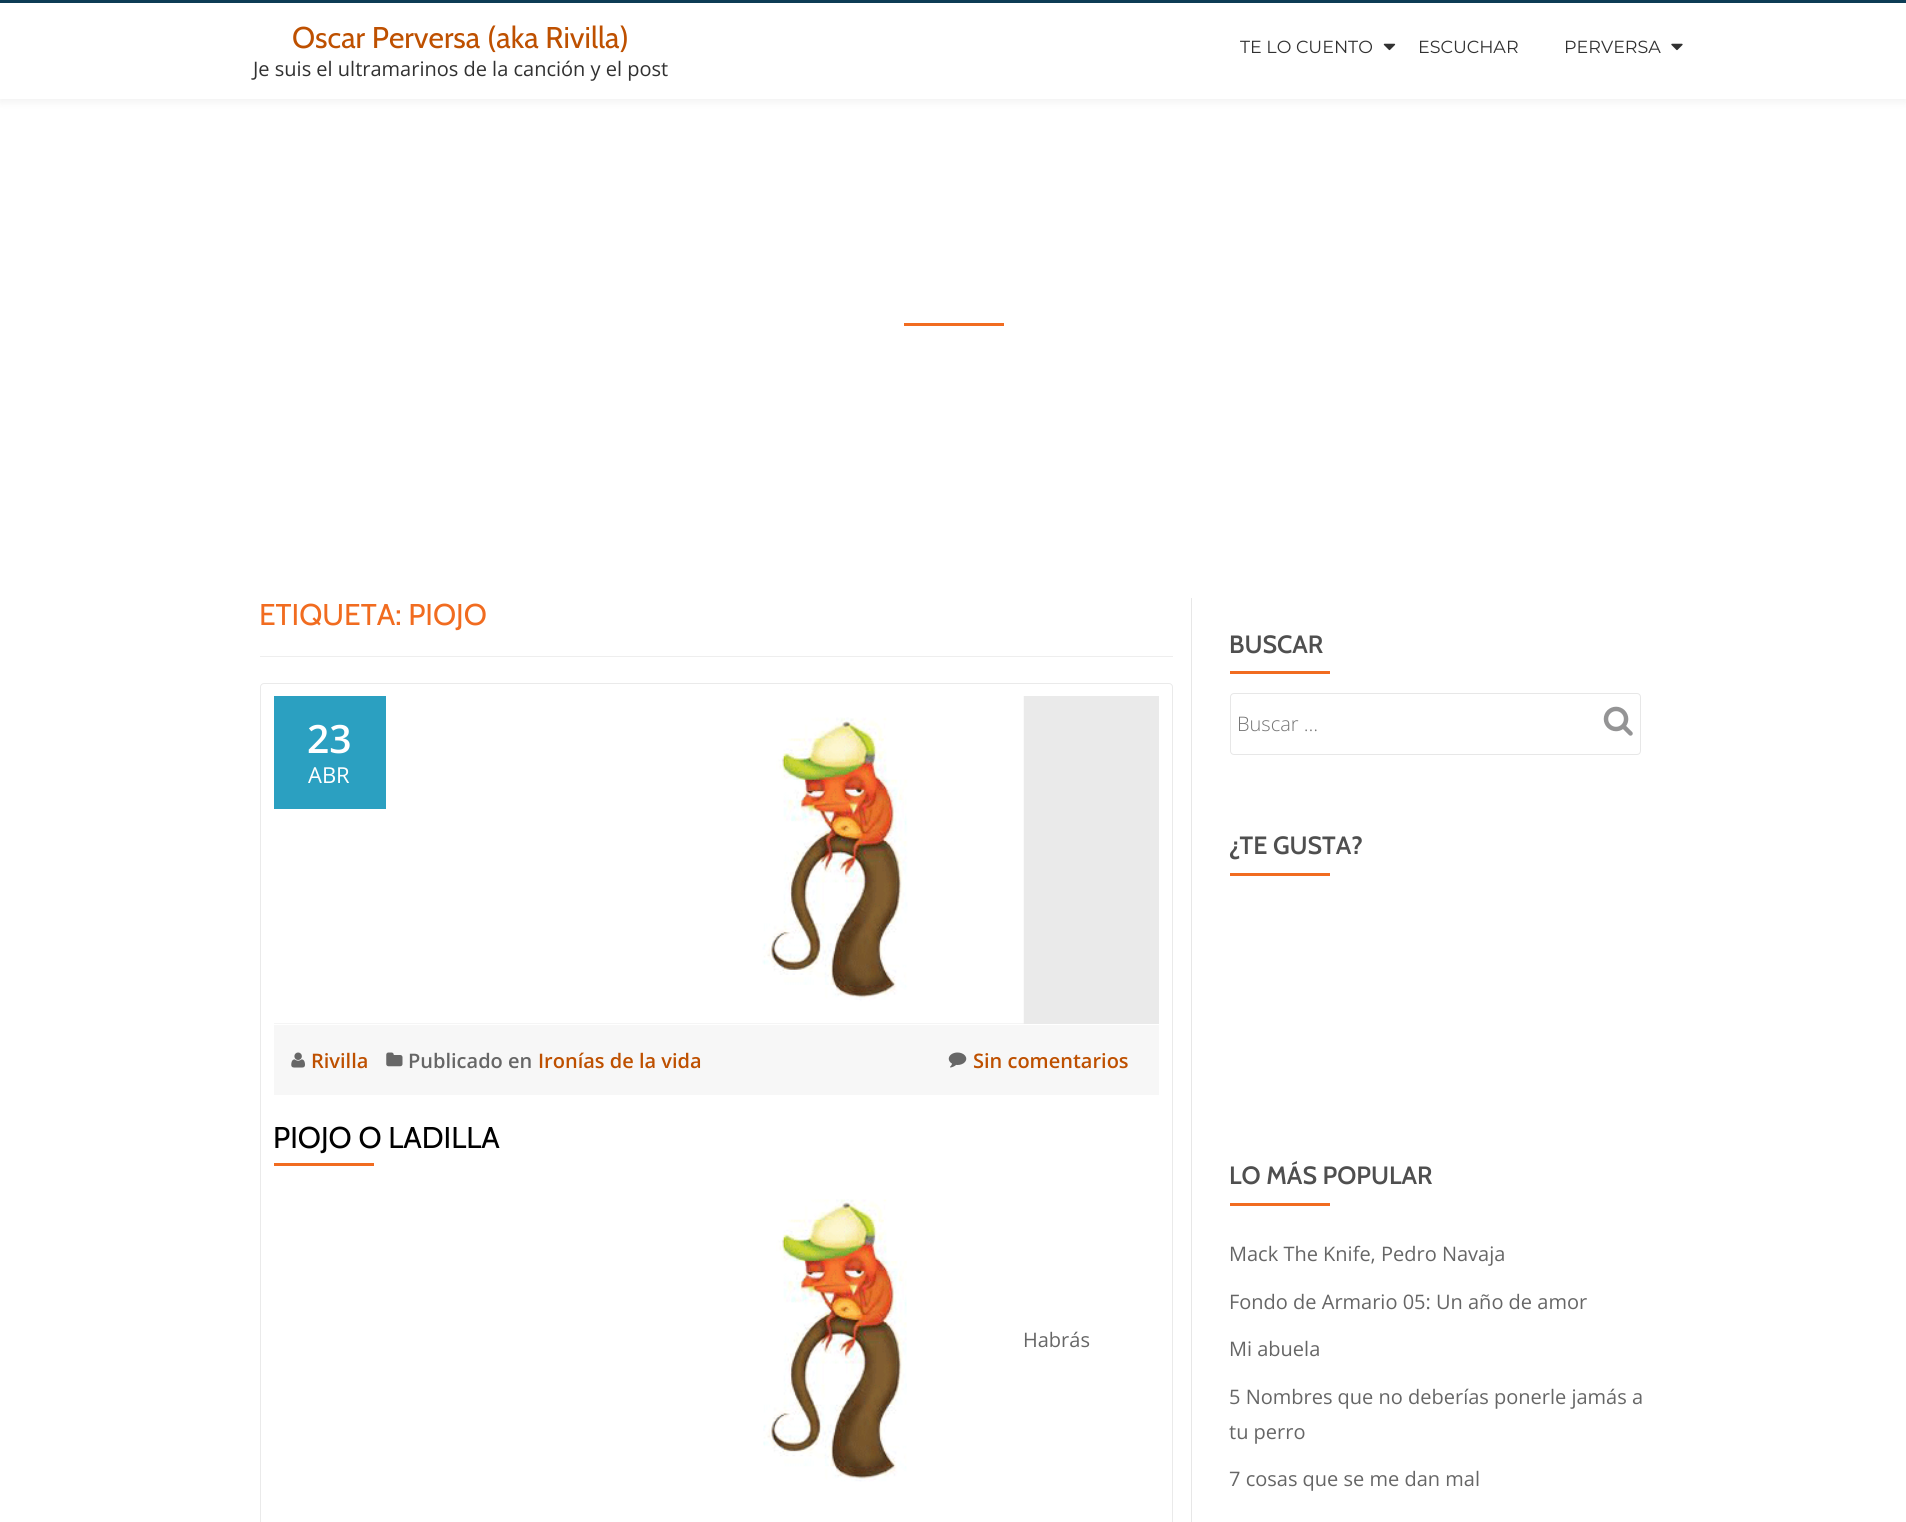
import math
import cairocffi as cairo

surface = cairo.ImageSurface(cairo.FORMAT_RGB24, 1906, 1522)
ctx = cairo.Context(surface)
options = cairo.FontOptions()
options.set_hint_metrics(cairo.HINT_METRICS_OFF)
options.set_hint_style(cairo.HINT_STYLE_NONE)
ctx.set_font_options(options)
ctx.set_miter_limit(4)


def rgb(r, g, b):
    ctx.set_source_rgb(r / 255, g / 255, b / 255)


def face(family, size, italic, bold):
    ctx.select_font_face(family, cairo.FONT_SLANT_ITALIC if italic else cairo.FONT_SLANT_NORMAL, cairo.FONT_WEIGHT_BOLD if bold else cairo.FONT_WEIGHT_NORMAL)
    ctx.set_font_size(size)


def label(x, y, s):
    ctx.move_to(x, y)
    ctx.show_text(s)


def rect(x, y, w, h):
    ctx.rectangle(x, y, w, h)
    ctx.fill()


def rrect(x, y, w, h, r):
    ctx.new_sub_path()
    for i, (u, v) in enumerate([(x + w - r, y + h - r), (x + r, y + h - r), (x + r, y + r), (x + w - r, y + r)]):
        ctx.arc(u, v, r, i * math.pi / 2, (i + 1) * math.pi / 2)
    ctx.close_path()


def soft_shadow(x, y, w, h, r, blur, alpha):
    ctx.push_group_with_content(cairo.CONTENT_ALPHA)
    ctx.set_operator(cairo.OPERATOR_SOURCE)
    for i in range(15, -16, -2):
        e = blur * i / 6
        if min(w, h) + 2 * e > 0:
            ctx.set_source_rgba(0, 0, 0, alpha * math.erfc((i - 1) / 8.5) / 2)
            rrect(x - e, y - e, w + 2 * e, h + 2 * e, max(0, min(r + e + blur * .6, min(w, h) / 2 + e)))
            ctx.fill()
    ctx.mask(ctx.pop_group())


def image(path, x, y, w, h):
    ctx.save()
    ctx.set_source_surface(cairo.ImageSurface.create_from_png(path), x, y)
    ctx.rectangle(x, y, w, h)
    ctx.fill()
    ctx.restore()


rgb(255, 255, 255)
ctx.paint()
rgb(50, 50, 50)
soft_shadow(0, -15, 1906, 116, 0, 5, 0.08)
rgb(255, 255, 255)
rect(0, 3, 1906, 96)
rgb(13, 60, 85)
rect(0, 0, 1906, 3)
face('Cabin', 30, 0, 0)
rgb(190, 80, 0)
label(292, 48, 'Oscar Perversa (aka Rivilla)')
face('Open Sans', 20, 0, 0)
rgb(49, 49, 49)
label(253, 76, 'Je suis el ultramarinos de la canción y el post')
face('Montserrat', 17.5, 0, 0)
label(1240, 53, 'TE LO CUENTO')
image('image0.png', 1383, 43, 13, 8)
label(1418, 53, 'ESCUCHAR')
label(1564, 53, 'PERVERSA')
image('image1.png', 1671, 43, 12, 8)
rgb(241, 108, 32)
rect(904, 323, 100, 3)
rgb(238, 238, 238)
rect(260, 656, 913, 1)
face('Cabin', 30, 0, 0)
rgb(241, 108, 32)
label(259, 625, 'ETIQUETA: PIOJO')
rrect(260.5, 683.5, 912, 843, 3.5)
rgb(234, 234, 234)
ctx.set_line_width(1)
ctx.stroke()
rect(274, 696, 885, 328)
image('image2.png', 274, 696, 750, 328)
rgb(43, 160, 193)
rect(274, 696, 112, 113)
face('Open Sans SemiBold', 39, 0, 0)
rgb(255, 255, 255)
label(307, 753, '23')
face('Open Sans', 22, 0, 0)
label(308, 783, 'ABR')
rgb(247, 247, 247)
rect(274, 1025, 885, 70)
image('image3.png', 291, 1052, 14, 16)
face('Open Sans SemiBold', 20, 0, 0)
rgb(190, 80, 0)
label(311, 1068, 'Rivilla')
image('image4.png', 386, 1052, 17, 15)
rgb(102, 102, 102)
label(408, 1068, 'Publicado en')
rgb(190, 80, 0)
label(538, 1068, 'Ironías de la vida')
image('image5.png', 948, 1052, 19, 16)
label(973, 1068, 'Sin comentarios')
face('Cabin', 30, 0, 0)
rgb(0, 0, 0)
label(273, 1148, 'PIOJO O LADILLA')
rgb(241, 108, 32)
rect(274, 1163, 100, 3)
image('image6.png', 763, 1199, 144, 283)
face('Open Sans', 20, 0, 0)
rgb(102, 102, 102)
label(1023, 1347, 'Habrás')
rgb(231, 231, 231)
rect(1191, 598, 1, 924)
face('Cabin SemiBold', 25, 0, 0)
rgb(79, 79, 79)
label(1229, 653, 'BUSCAR')
rgb(241, 108, 32)
rect(1230, 671, 100, 3)
rrect(1230.5, 693.5, 410, 61, 3.5)
rgb(231, 231, 231)
ctx.stroke()
face('Open Sans Light', 20, 0, 0)
rgb(117, 117, 117)
label(1237, 731, 'Buscar …')
image('image7.png', 1603, 706, 30, 30)
face('Cabin SemiBold', 25, 0, 0)
rgb(79, 79, 79)
label(1229, 854, '¿TE GUSTA?')
rgb(241, 108, 32)
rect(1230, 873, 100, 3)
rgb(79, 79, 79)
label(1229, 1184, 'LO MÁS POPULAR')
rgb(241, 108, 32)
rect(1230, 1203, 100, 3)
face('Open Sans', 20, 0, 0)
rgb(102, 102, 102)
label(1229, 1261, 'Mack The Knife, Pedro Navaja')
label(1229, 1309, 'Fondo de Armario 05: Un año de amor')
label(1229, 1356, 'Mi abuela')
label(1229, 1404, '5 Nombres que no deberías ponerle jamás a')
label(1229, 1439, 'tu perro')
label(1229, 1486, '7 cosas que se me dan mal')
surface.write_to_png('render.png')
